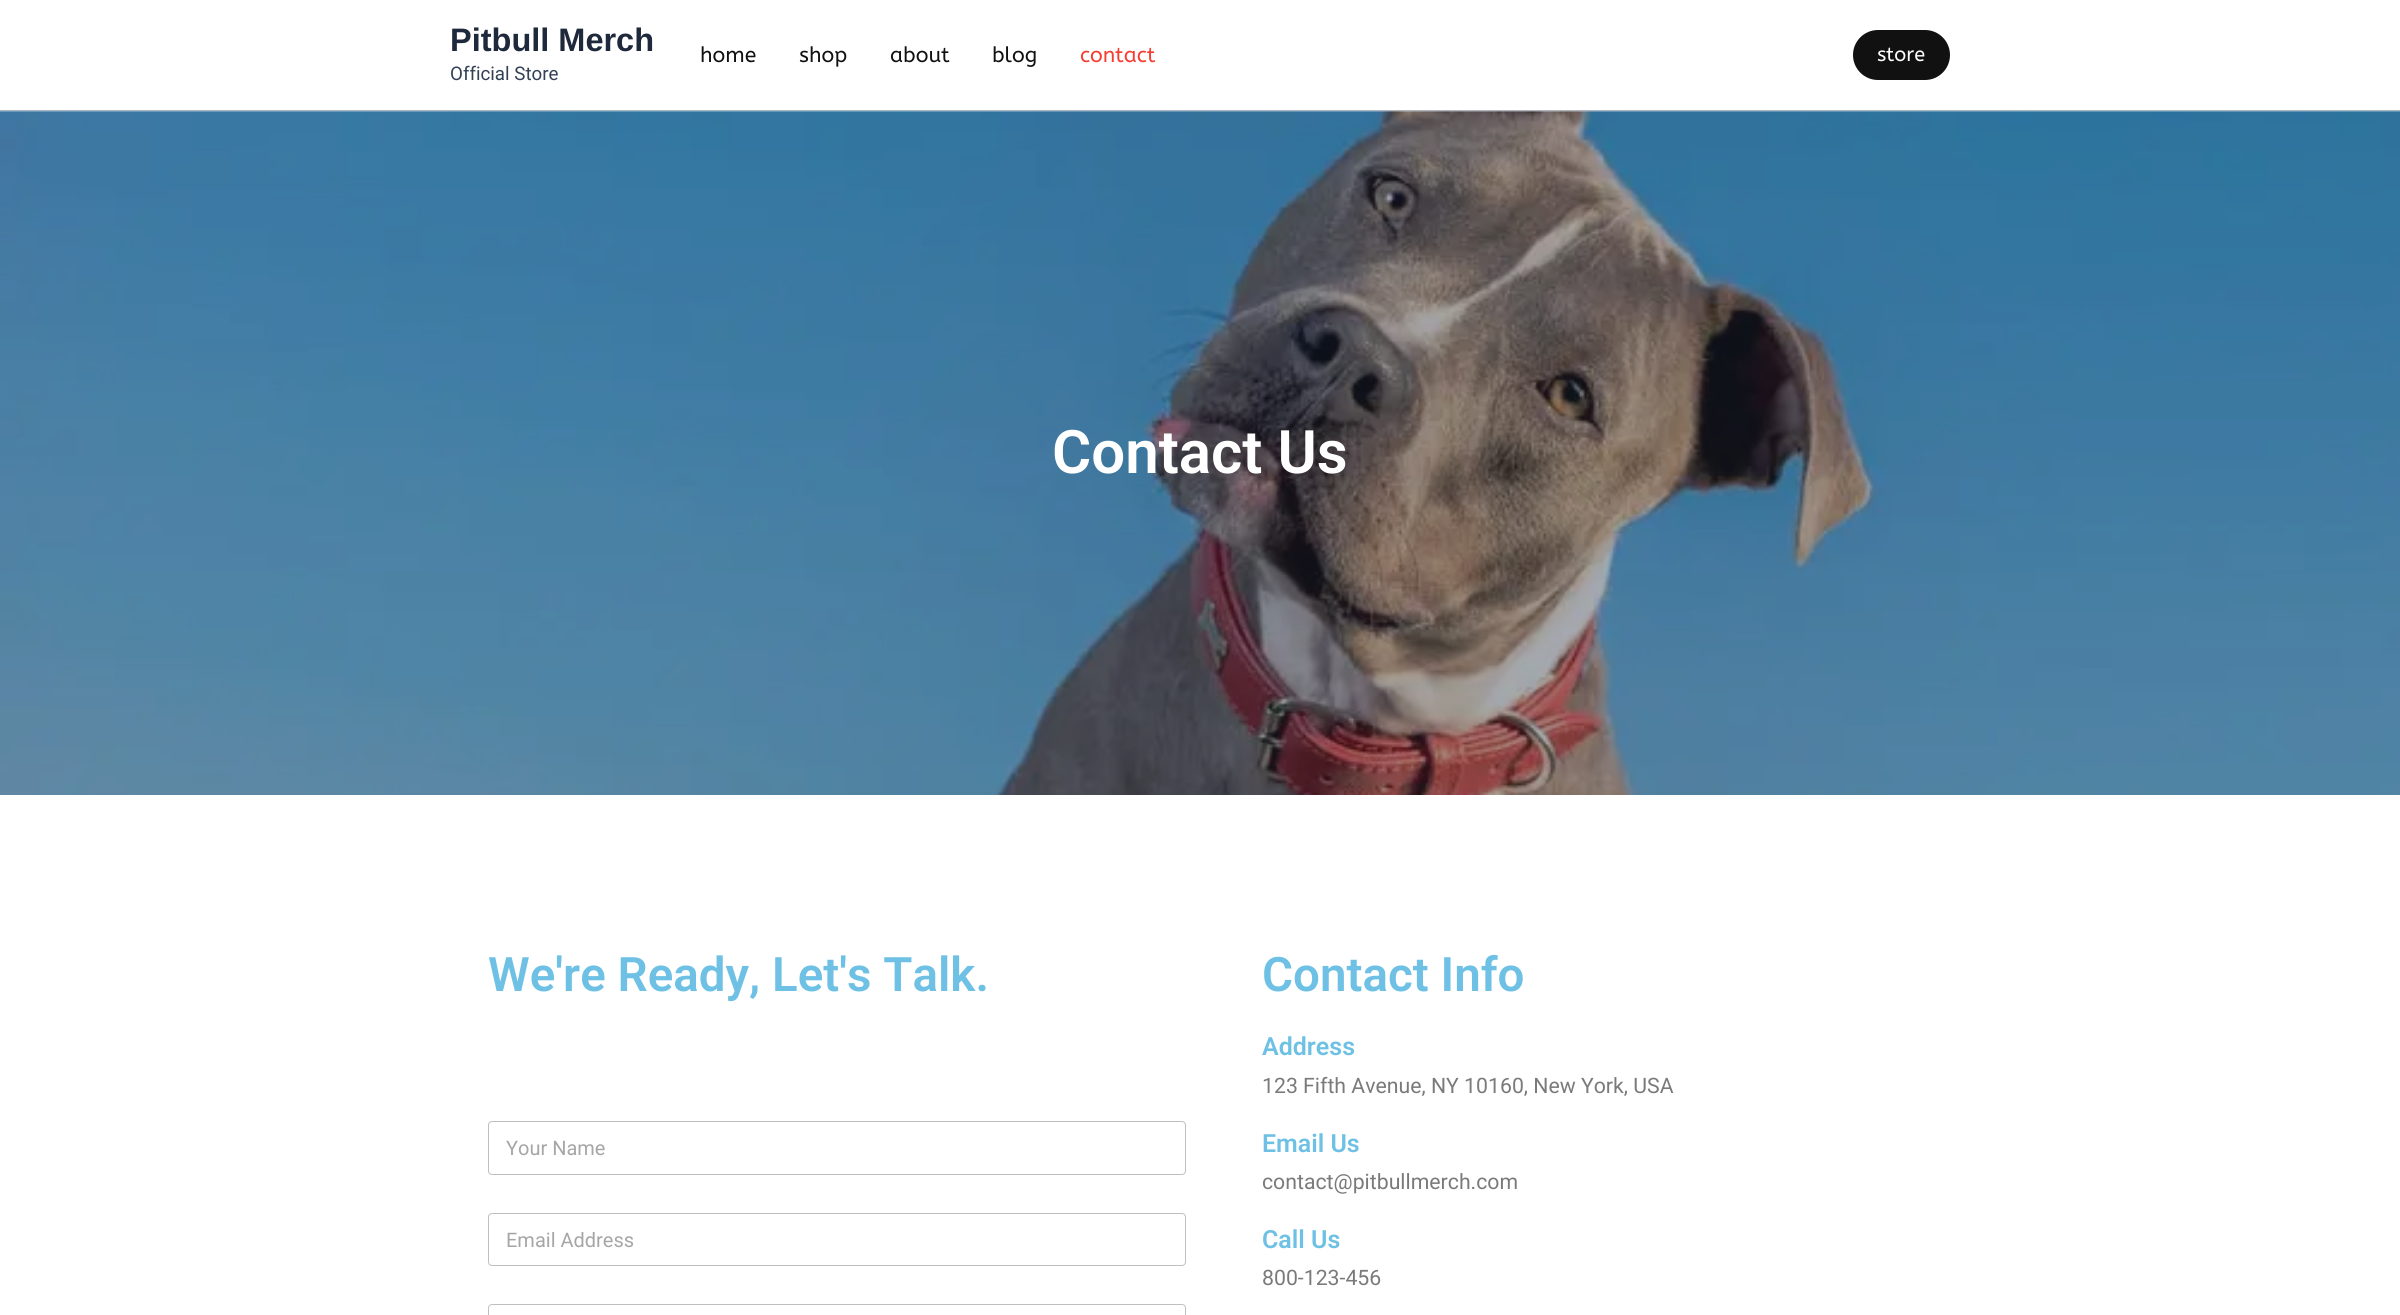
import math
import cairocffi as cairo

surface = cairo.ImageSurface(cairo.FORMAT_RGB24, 2400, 1315)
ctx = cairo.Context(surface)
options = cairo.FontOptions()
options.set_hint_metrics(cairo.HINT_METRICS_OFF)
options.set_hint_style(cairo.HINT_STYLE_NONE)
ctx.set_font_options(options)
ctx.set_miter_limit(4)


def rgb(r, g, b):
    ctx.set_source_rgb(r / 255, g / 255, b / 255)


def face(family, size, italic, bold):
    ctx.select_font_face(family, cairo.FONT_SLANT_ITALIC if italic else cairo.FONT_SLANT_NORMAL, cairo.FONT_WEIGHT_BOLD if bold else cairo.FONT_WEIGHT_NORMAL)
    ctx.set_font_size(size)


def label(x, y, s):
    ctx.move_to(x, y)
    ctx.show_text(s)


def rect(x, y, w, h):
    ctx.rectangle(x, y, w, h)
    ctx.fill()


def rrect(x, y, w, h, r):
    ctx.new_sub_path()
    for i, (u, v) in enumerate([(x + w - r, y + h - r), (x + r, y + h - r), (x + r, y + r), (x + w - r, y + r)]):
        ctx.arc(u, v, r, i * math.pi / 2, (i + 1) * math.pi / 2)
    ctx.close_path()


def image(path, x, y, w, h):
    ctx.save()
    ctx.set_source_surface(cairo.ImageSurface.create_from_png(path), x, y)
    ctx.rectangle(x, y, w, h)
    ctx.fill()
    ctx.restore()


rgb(255, 255, 255)
ctx.paint()
rgb(173, 182, 190)
rect(0, 110, 2400, 1)
face('Liberation Sans', 32.5, 0, 1)
rgb(30, 41, 59)
label(450, 51, 'Pitbull Merch')
face('Roboto', 18.75, 0, 0)
rgb(51, 65, 85)
label(450, 80, 'Official Store')
face('ABeeZee', 21.25, 0, 0)
rgb(17, 17, 17)
label(700, 62, 'home')
label(799, 62, 'shop')
label(890, 62, 'about')
label(992, 62, 'blog')
rgb(247, 60, 50)
label(1080, 62, 'contact')
rgb(17, 17, 17)
rrect(1853, 30, 97, 50, 25)
ctx.fill()
face('ABeeZee', 20, 0, 0)
rgb(255, 255, 255)
label(1877, 61, 'store')
image('image0.png', 0, 111, 2400, 684)
face('Roboto SemiBold', 60, 0, 0)
label(1052, 473, 'Contact Us')
face('Roboto SemiBold', 47.5, 0, 0)
rgb(110, 193, 228)
label(488, 991, 'We\'re Ready, Let\'s Talk.')
rrect(488.5, 1121.5, 697, 53, 3.5)
rgb(191, 191, 191)
ctx.set_line_width(1)
ctx.stroke()
face('Roboto', 20, 0, 0)
rgb(166, 166, 166)
label(506, 1155, 'Your Name')
rrect(488.5, 1213.5, 697, 52, 3.5)
rgb(191, 191, 191)
ctx.stroke()
rgb(166, 166, 166)
label(506, 1247, 'Email Address')
rrect(488.5, 1304.5, 697, 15, 3.5)
rgb(191, 191, 191)
ctx.stroke()
face('Roboto SemiBold', 47.5, 0, 0)
rgb(110, 193, 228)
label(1262, 991, 'Contact Info')
face('Roboto SemiBold', 25, 0, 0)
label(1262, 1055, 'Address')
face('Roboto', 21.25, 0, 0)
rgb(122, 122, 122)
label(1262, 1093, '123 Fifth Avenue, NY 10160, New York, USA')
face('Roboto SemiBold', 25, 0, 0)
rgb(110, 193, 228)
label(1262, 1152, 'Email Us')
face('Roboto', 21.25, 0, 0)
rgb(122, 122, 122)
label(1262, 1189, 'contact@pitbullmerch.com')
face('Roboto SemiBold', 25, 0, 0)
rgb(110, 193, 228)
label(1262, 1248, 'Call Us')
face('Roboto', 21.25, 0, 0)
rgb(122, 122, 122)
label(1262, 1285, '800-123-456')
surface.write_to_png('render.png')
